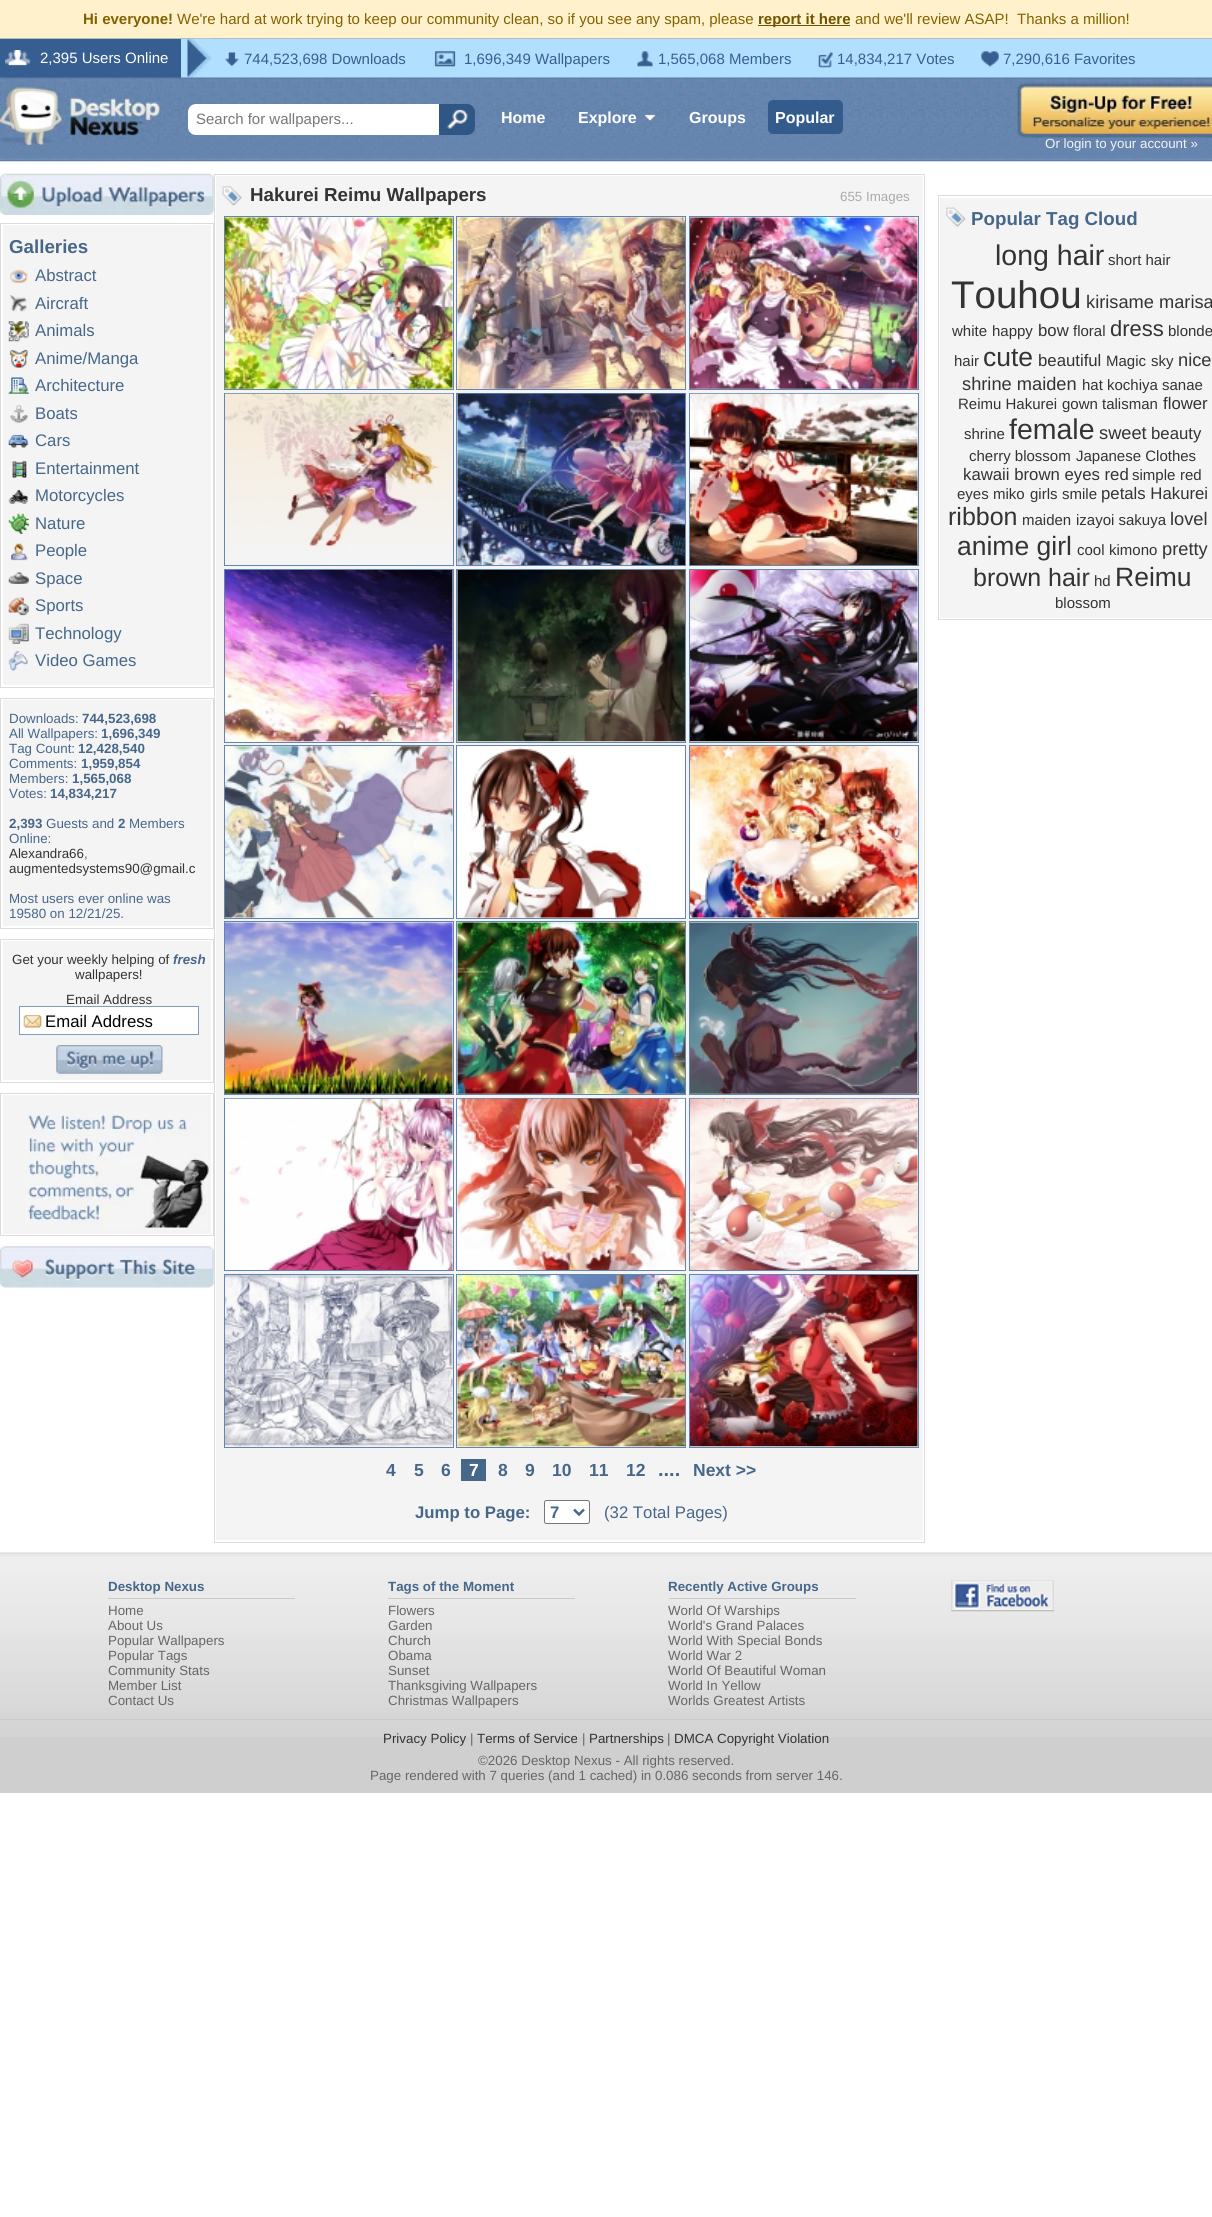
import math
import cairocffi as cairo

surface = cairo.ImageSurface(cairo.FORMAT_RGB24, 1212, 2217)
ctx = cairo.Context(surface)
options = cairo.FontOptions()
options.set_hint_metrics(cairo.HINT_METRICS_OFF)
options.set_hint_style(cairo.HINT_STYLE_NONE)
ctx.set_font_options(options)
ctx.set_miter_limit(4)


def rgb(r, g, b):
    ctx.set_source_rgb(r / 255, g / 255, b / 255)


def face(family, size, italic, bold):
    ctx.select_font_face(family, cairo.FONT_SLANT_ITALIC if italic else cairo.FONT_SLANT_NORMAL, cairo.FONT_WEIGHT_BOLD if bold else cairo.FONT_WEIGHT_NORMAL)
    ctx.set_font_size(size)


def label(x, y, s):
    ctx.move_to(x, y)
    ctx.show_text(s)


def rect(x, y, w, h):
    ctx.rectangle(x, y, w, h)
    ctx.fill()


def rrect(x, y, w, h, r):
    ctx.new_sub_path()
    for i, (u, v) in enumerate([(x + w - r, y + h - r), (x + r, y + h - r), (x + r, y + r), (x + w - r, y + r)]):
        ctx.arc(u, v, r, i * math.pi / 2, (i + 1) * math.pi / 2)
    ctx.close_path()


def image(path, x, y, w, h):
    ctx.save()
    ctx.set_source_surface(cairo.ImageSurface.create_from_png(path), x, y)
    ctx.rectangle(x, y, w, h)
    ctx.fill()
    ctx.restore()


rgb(255, 255, 255)
ctx.paint()
rgb(255, 241, 203)
rect(0, 0, 1212, 38)
face('Liberation Sans', 15, 0, 1)
rgb(130, 98, 0)
label(83, 24, 'Hi everyone!')
face('Liberation Sans', 15, 0, 0)
label(177, 24, 'We\'re hard at work trying to keep our community clean, so if you see any spam, please')
rgb(112, 85, 0)
rect(758, 25, 92, 1)
face('Liberation Sans', 15, 0, 1)
label(758, 24, 'report it here')
face('Liberation Sans', 15, 0, 0)
rgb(130, 98, 0)
label(855, 24, 'and we\'ll review ASAP!  Thanks a million!')
rgb(177, 223, 255)
rect(181, 39, 1031, 39)
rgb(182, 186, 192)
rect(0, 38, 1212, 1)
rgb(55, 94, 144)
rect(0, 39, 181, 39)
image('image0.png', 5, 50, 26, 16)
rgb(255, 255, 255)
label(40, 63, '2,395 Users Online')
image('image1.png', 187, 38, 25, 40)
image('image2.png', 225, 52, 14, 15)
rgb(55, 94, 144)
label(244, 64, '744,523,698 Downloads')
image('image3.png', 434, 51, 22, 16)
label(464, 64, '1,696,349 Wallpapers')
image('image4.png', 637, 51, 16, 16)
label(658, 64, '1,565,068 Members')
image('image5.png', 818, 52, 15, 16)
label(837, 64, '14,834,217 Votes')
image('image6.png', 981, 51, 18, 16)
label(1003, 64, '7,290,616 Favorites')
image('image7.png', 0, 77, 1212, 85)
image('image8.png', 0, 87, 160, 58)
rgb(255, 255, 255)
ctx.new_path()
ctx.move_to(196, 104)
ctx.line_to(459, 104)
ctx.line_to(459, 135)
ctx.line_to(196, 135)
ctx.curve_to(191.5, 135, 188, 131.5, 188, 127)
ctx.line_to(188, 112)
ctx.curve_to(188, 107.5, 191.5, 104, 196, 104)
ctx.close_path()
ctx.fill()
rgb(119, 119, 119)
label(196, 124, 'Search for wallpapers...')
rgb(48, 86, 134)
ctx.new_path()
ctx.move_to(439, 104)
ctx.line_to(467, 104)
ctx.curve_to(471.5, 104, 475, 107.5, 475, 112)
ctx.line_to(475, 127)
ctx.curve_to(475, 131.5, 471.5, 135, 467, 135)
ctx.line_to(439, 135)
ctx.close_path()
ctx.fill()
image('image9.png', 447, 109, 21, 20)
face('Liberation Sans', 16, 0, 1)
rgb(255, 255, 255)
label(501, 123, 'Home')
label(578, 123, 'Explore')
image('image10.png', 643, 114, 14, 8)
label(689, 123, 'Groups')
rgb(51, 91, 139)
rrect(768, 100, 75, 34, 5)
ctx.fill()
rgb(255, 255, 255)
label(775, 123, 'Popular')
image('image11.png', 1017, 82, 195, 56)
face('Liberation Sans', 13.35, 0, 0)
rgb(244, 244, 244)
label(1045, 148, 'Or login to your account »')
image('image12.png', 0, 173, 214, 42)
ctx.rectangle(0.5, 223.5, 213, 464)
rgb(220, 220, 220)
ctx.set_line_width(1)
ctx.stroke()
rgb(244, 244, 244)
rect(3, 225, 208, 460)
face('Liberation Sans', 18.75, 0, 1)
rgb(70, 103, 138)
label(9, 253, 'Galleries')
image('image13.png', 10, 269, 18, 14)
face('Liberation Sans', 16.75, 0, 0)
label(35, 281, 'Abstract')
image('image14.png', 10, 295, 17, 17)
label(35, 309, 'Aircraft')
image('image15.png', 8, 321, 21, 21)
label(35, 336, 'Animals')
image('image16.png', 9, 349, 19, 19)
label(35, 364, 'Anime/Manga')
image('image17.png', 8, 377, 21, 17)
label(35, 391, 'Architecture')
image('image18.png', 10, 405, 18, 18)
label(35, 419, 'Boats')
image('image19.png', 8, 434, 21, 14)
label(35, 446, 'Cars')
image('image20.png', 12, 461, 15, 17)
label(35, 474, 'Entertainment')
image('image21.png', 8, 489, 21, 15)
label(35, 501, 'Motorcycles')
image('image22.png', 8, 513, 21, 21)
label(35, 529, 'Nature')
image('image23.png', 11, 543, 17, 18)
label(35, 556, 'People')
image('image24.png', 8, 572, 21, 12)
label(35, 584, 'Space')
image('image25.png', 8, 597, 21, 19)
label(35, 611, 'Sports')
image('image26.png', 8, 623, 21, 21)
label(35, 639, 'Technology')
image('image27.png', 8, 651, 20, 21)
label(35, 666, 'Video Games')
ctx.rectangle(0.5, 698.5, 213, 230)
rgb(220, 220, 220)
ctx.stroke()
rgb(244, 244, 244)
rect(3, 700, 208, 226)
face('Liberation Sans', 13.35, 0, 0)
rgb(70, 103, 138)
label(9, 723, 'Downloads:')
face('Liberation Sans', 13.35, 0, 1)
label(82, 723, '744,523,698')
face('Liberation Sans', 13.35, 0, 0)
label(9, 738, 'All Wallpapers:')
face('Liberation Sans', 13.35, 0, 1)
label(101, 738, '1,696,349')
face('Liberation Sans', 13.35, 0, 0)
label(9, 753, 'Tag Count:')
face('Liberation Sans', 13.35, 0, 1)
label(78, 753, '12,428,540')
face('Liberation Sans', 13.35, 0, 0)
label(9, 768, 'Comments:')
face('Liberation Sans', 13.35, 0, 1)
label(81, 768, '1,959,854')
face('Liberation Sans', 13.35, 0, 0)
label(9, 783, 'Members:')
face('Liberation Sans', 13.35, 0, 1)
label(72, 783, '1,565,068')
face('Liberation Sans', 13.35, 0, 0)
label(9, 798, 'Votes:')
face('Liberation Sans', 13.35, 0, 1)
label(50, 798, '14,834,217')
label(9, 828, '2,393')
face('Liberation Sans', 13.35, 0, 0)
label(46, 828, 'Guests and')
face('Liberation Sans', 13.35, 0, 1)
label(118, 828, '2')
face('Liberation Sans', 13.35, 0, 0)
label(129, 828, 'Members')
label(9, 843, 'Online:')
rgb(51, 51, 51)
label(9, 858, 'Alexandra66')
rgb(70, 103, 138)
label(84, 858, ',')
rgb(51, 51, 51)
label(9, 873, 'augmentedsystems90@gmail.c')
rgb(70, 103, 138)
label(9, 903, 'Most users ever online was')
label(9, 918, '19580 on 12/21/25.')
ctx.rectangle(0.5, 939.5, 213, 143)
rgb(220, 220, 220)
ctx.stroke()
rgb(244, 244, 244)
rect(3, 941, 208, 139)
rgb(51, 51, 51)
label(12, 964, 'Get your weekly helping of')
face('Liberation Sans', 13.35, 1, 1)
rgb(70, 103, 138)
label(173, 964, 'fresh')
face('Liberation Sans', 13.35, 0, 0)
rgb(51, 51, 51)
label(75, 979, 'wallpapers!')
label(66, 1004, 'Email Address')
rgb(255, 255, 255)
rect(20, 1007, 178, 27)
image('image28.png', 20, 1015, 22, 13)
ctx.rectangle(19.5, 1006.5, 179, 28)
rgb(127, 157, 185)
ctx.stroke()
face('Liberation Sans', 16.75, 0, 0)
rgb(0, 0, 0)
label(45, 1027, 'Email Address')
image('image29.png', 56, 1045, 107, 29)
ctx.rectangle(0.5, 1093.5, 213, 142)
rgb(220, 220, 220)
ctx.stroke()
rgb(244, 244, 244)
rect(3, 1095, 208, 139)
image('image30.png', 25, 1114, 184, 114)
image('image31.png', 0, 1246, 214, 42)
ctx.rectangle(214.5, 174.5, 710, 1368)
rgb(220, 220, 220)
ctx.stroke()
rgb(244, 244, 244)
rect(216, 176, 707, 1364)
image('image32.png', 222, 186, 20, 20)
face('Liberation Sans', 18.75, 0, 1)
rgb(51, 51, 51)
label(250, 201, 'Hakurei Reimu Wallpapers')
face('Liberation Sans', 13.35, 0, 0)
rgb(170, 170, 170)
label(840, 201, '655 Images')
ctx.rectangle(224.5, 216.5, 229, 173)
rgb(100, 133, 174)
ctx.stroke()
image('image33.png', 225, 217, 228, 172)
ctx.rectangle(456.5, 216.5, 229, 173)
ctx.stroke()
image('image34.png', 457, 217, 228, 172)
ctx.rectangle(689.5, 216.5, 229, 173)
ctx.stroke()
image('image35.png', 690, 217, 228, 172)
ctx.rectangle(224.5, 393.5, 229, 172)
ctx.stroke()
image('image36.png', 225, 393, 228, 158)
ctx.rectangle(456.5, 393.5, 229, 172)
ctx.stroke()
image('image37.png', 457, 393, 228, 172)
ctx.rectangle(689.5, 393.5, 229, 172)
ctx.stroke()
image('image38.png', 690, 393, 228, 172)
ctx.rectangle(224.5, 569.5, 229, 173)
ctx.stroke()
image('image39.png', 225, 570, 228, 172)
ctx.rectangle(456.5, 569.5, 229, 173)
ctx.stroke()
image('image40.png', 457, 570, 228, 172)
ctx.rectangle(689.5, 569.5, 229, 173)
ctx.stroke()
image('image41.png', 690, 570, 228, 172)
ctx.rectangle(224.5, 745.5, 229, 173)
ctx.stroke()
image('image42.png', 225, 746, 228, 172)
ctx.rectangle(456.5, 745.5, 229, 173)
ctx.stroke()
image('image43.png', 457, 746, 228, 172)
ctx.rectangle(689.5, 745.5, 229, 173)
ctx.stroke()
image('image44.png', 690, 746, 228, 172)
ctx.rectangle(224.5, 921.5, 229, 173)
ctx.stroke()
image('image45.png', 225, 922, 228, 172)
ctx.rectangle(456.5, 921.5, 229, 173)
ctx.stroke()
image('image46.png', 457, 922, 228, 172)
ctx.rectangle(689.5, 921.5, 229, 173)
ctx.stroke()
image('image47.png', 690, 922, 228, 172)
ctx.rectangle(224.5, 1098.5, 229, 172)
ctx.stroke()
image('image48.png', 225, 1098, 228, 172)
ctx.rectangle(456.5, 1098.5, 229, 172)
ctx.stroke()
image('image49.png', 457, 1098, 228, 172)
ctx.rectangle(689.5, 1098.5, 229, 172)
ctx.stroke()
image('image50.png', 690, 1098, 228, 172)
ctx.rectangle(224.5, 1274.5, 229, 173)
ctx.stroke()
image('image51.png', 225, 1275, 228, 172)
ctx.rectangle(456.5, 1274.5, 229, 173)
ctx.stroke()
image('image52.png', 457, 1275, 228, 172)
ctx.rectangle(689.5, 1274.5, 229, 173)
ctx.stroke()
image('image53.png', 690, 1275, 228, 172)
face('Liberation Sans', 17.5, 0, 1)
rgb(70, 103, 138)
label(386, 1476, '4')
label(414, 1476, '5')
label(441, 1476, '6')
rect(461, 1459, 25, 22)
rgb(255, 255, 255)
label(469, 1476, '7')
rgb(70, 103, 138)
label(498, 1476, '8')
label(525, 1476, '9')
label(552, 1476, '10')
label(589, 1476, '11')
label(626, 1476, '12')
face('Liberation Sans', 20, 0, 1)
label(658, 1476, '....')
face('Liberation Sans', 17.5, 0, 1)
label(693, 1476, 'Next >>')
face('Liberation Sans', 16.75, 0, 1)
label(415, 1518, 'Jump to Page:')
rgb(255, 255, 255)
rrect(544.5, 1500.5, 45, 23, 2)
ctx.fill_preserve()
rgb(118, 118, 118)
ctx.stroke()
ctx.new_path()
ctx.move_to(574, 1509.5)
ctx.line_to(579, 1514.5)
ctx.line_to(584, 1509.5)
rgb(70, 103, 138)
ctx.set_line_width(2.5)
ctx.stroke()
label(550, 1518, '7')
face('Liberation Sans', 16.75, 0, 0)
label(604, 1518, '(32 Total Pages)')
ctx.rectangle(938.5, 195.5, 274, 424)
rgb(220, 220, 220)
ctx.set_line_width(1)
ctx.stroke()
rgb(244, 244, 244)
rect(940, 198, 272, 420)
image('image54.png', 946, 207, 20, 20)
face('Liberation Sans', 18.75, 0, 1)
rgb(70, 103, 138)
label(971, 225, 'Popular Tag Cloud')
face('Liberation Sans', 28.5, 0, 0)
rgb(51, 51, 51)
label(995, 265, 'long hair')
face('Liberation Sans', 15, 0, 0)
label(1108, 265, 'short hair')
face('Liberation Sans', 38.5, 0, 0)
label(951, 308, 'Touhou')
face('Liberation Sans', 18.25, 0, 0)
label(1086, 308, 'kirisame marisa')
face('Liberation Sans', 15, 0, 0)
label(952, 336, 'white')
label(992, 336, 'happy')
face('Liberation Sans', 16.75, 0, 0)
label(1038, 336, 'bow')
face('Liberation Sans', 15, 0, 0)
label(1073, 336, 'floral')
face('Liberation Sans', 22, 0, 0)
label(1110, 336, 'dress')
face('Liberation Sans', 15, 0, 0)
label(1168, 336, 'blonde')
label(954, 366, 'hair')
face('Liberation Sans', 26.5, 0, 0)
label(983, 366, 'cute')
face('Liberation Sans', 16.75, 0, 0)
label(1038, 366, 'beautiful')
face('Liberation Sans', 15, 0, 0)
label(1106, 366, 'Magic')
label(1151, 366, 'sky')
face('Liberation Sans', 18.25, 0, 0)
label(1178, 366, 'nice')
label(962, 390, 'shrine maiden')
face('Liberation Sans', 15, 0, 0)
label(1082, 390, 'hat')
label(1107, 390, 'kochiya sanae')
label(958, 409, 'Reimu Hakurei')
label(1062, 409, 'gown')
label(1102, 409, 'talisman')
face('Liberation Sans', 16.75, 0, 0)
label(1163, 409, 'flower')
face('Liberation Sans', 15, 0, 0)
label(964, 439, 'shrine')
face('Liberation Sans', 28.5, 0, 0)
label(1009, 439, 'female')
face('Liberation Sans', 18.25, 0, 0)
label(1099, 439, 'sweet')
face('Liberation Sans', 16.75, 0, 0)
label(1151, 439, 'beauty')
face('Liberation Sans', 15, 0, 0)
label(969, 461, 'cherry blossom')
label(1076, 461, 'Japanese Clothes')
face('Liberation Sans', 16.75, 0, 0)
label(963, 480, 'kawaii brown eyes red')
face('Liberation Sans', 15, 0, 0)
label(1132, 480, 'simple')
label(1180, 480, 'red')
label(957, 499, 'eyes')
label(993, 499, 'miko')
label(1030, 499, 'girls')
label(1062, 499, 'smile')
face('Liberation Sans', 16.75, 0, 0)
label(1101, 499, 'petals Hakurei')
face('Liberation Sans', 25, 0, 0)
label(948, 525, 'ribbon')
face('Liberation Sans', 15, 0, 0)
label(1022, 525, 'maiden')
label(1076, 525, 'izayoi sakuya')
face('Liberation Sans', 18.25, 0, 0)
label(1170, 525, 'lovel')
face('Liberation Sans', 26.5, 0, 0)
label(957, 555, 'anime girl')
face('Liberation Sans', 15, 0, 0)
label(1077, 555, 'cool')
label(1109, 555, 'kimono')
face('Liberation Sans', 18.25, 0, 0)
label(1162, 555, 'pretty')
face('Liberation Sans', 25, 0, 0)
label(973, 586, 'brown hair')
face('Liberation Sans', 15, 0, 0)
label(1094, 586, 'hd')
face('Liberation Sans', 26.5, 0, 0)
label(1115, 586, 'Reimu')
face('Liberation Sans', 15, 0, 0)
label(1055, 608, 'blossom')
rgb(207, 207, 207)
rect(0, 1737, 1212, 56)
image('image55.png', 0, 1552, 1212, 185)
face('Liberation Sans', 13.35, 0, 1)
rgb(70, 103, 138)
label(108, 1591, 'Desktop Nexus')
rgb(201, 201, 201)
rect(108, 1598, 187, 1)
face('Liberation Sans', 13.35, 0, 0)
rgb(102, 102, 102)
label(108, 1615, 'Home')
label(108, 1630, 'About Us')
label(108, 1645, 'Popular Wallpapers')
label(108, 1660, 'Popular Tags')
label(108, 1675, 'Community Stats')
label(108, 1690, 'Member List')
label(108, 1705, 'Contact Us')
face('Liberation Sans', 13.35, 0, 1)
rgb(70, 103, 138)
label(388, 1591, 'Tags of the Moment')
rgb(201, 201, 201)
rect(388, 1598, 187, 1)
face('Liberation Sans', 13.35, 0, 0)
rgb(102, 102, 102)
label(388, 1615, 'Flowers')
label(388, 1630, 'Garden')
label(388, 1645, 'Church')
label(388, 1660, 'Obama')
label(388, 1675, 'Sunset')
label(388, 1690, 'Thanksgiving Wallpapers')
label(388, 1705, 'Christmas Wallpapers')
face('Liberation Sans', 13.35, 0, 1)
rgb(70, 103, 138)
label(668, 1591, 'Recently Active Groups')
rgb(201, 201, 201)
rect(669, 1598, 187, 1)
face('Liberation Sans', 13.35, 0, 0)
rgb(102, 102, 102)
label(668, 1615, 'World Of Warships')
label(668, 1630, 'World\'s Grand Palaces')
label(668, 1645, 'World With Special Bonds')
label(668, 1660, 'World War 2')
label(668, 1675, 'World Of Beautiful Woman')
label(668, 1690, 'World In Yellow')
label(668, 1705, 'Worlds Greatest Artists')
image('image56.png', 951, 1580, 103, 32)
rgb(201, 201, 201)
rect(0, 1719, 1212, 1)
rgb(51, 51, 51)
label(383, 1743, 'Privacy Policy')
rgb(102, 102, 102)
label(470, 1743, '|')
rgb(51, 51, 51)
label(477, 1743, 'Terms of Service')
rgb(102, 102, 102)
label(582, 1743, '|')
rgb(51, 51, 51)
label(589, 1743, 'Partnerships')
rgb(102, 102, 102)
label(667, 1743, '|')
rgb(51, 51, 51)
label(674, 1743, 'DMCA Copyright Violation')
rgb(102, 102, 102)
label(478, 1765, '©2026 Desktop Nexus - All rights reserved.')
label(370, 1780, 'Page rendered with 7 queries (and 1 cached) in 0.086 seconds from server 146.')
surface.write_to_png('render.png')
